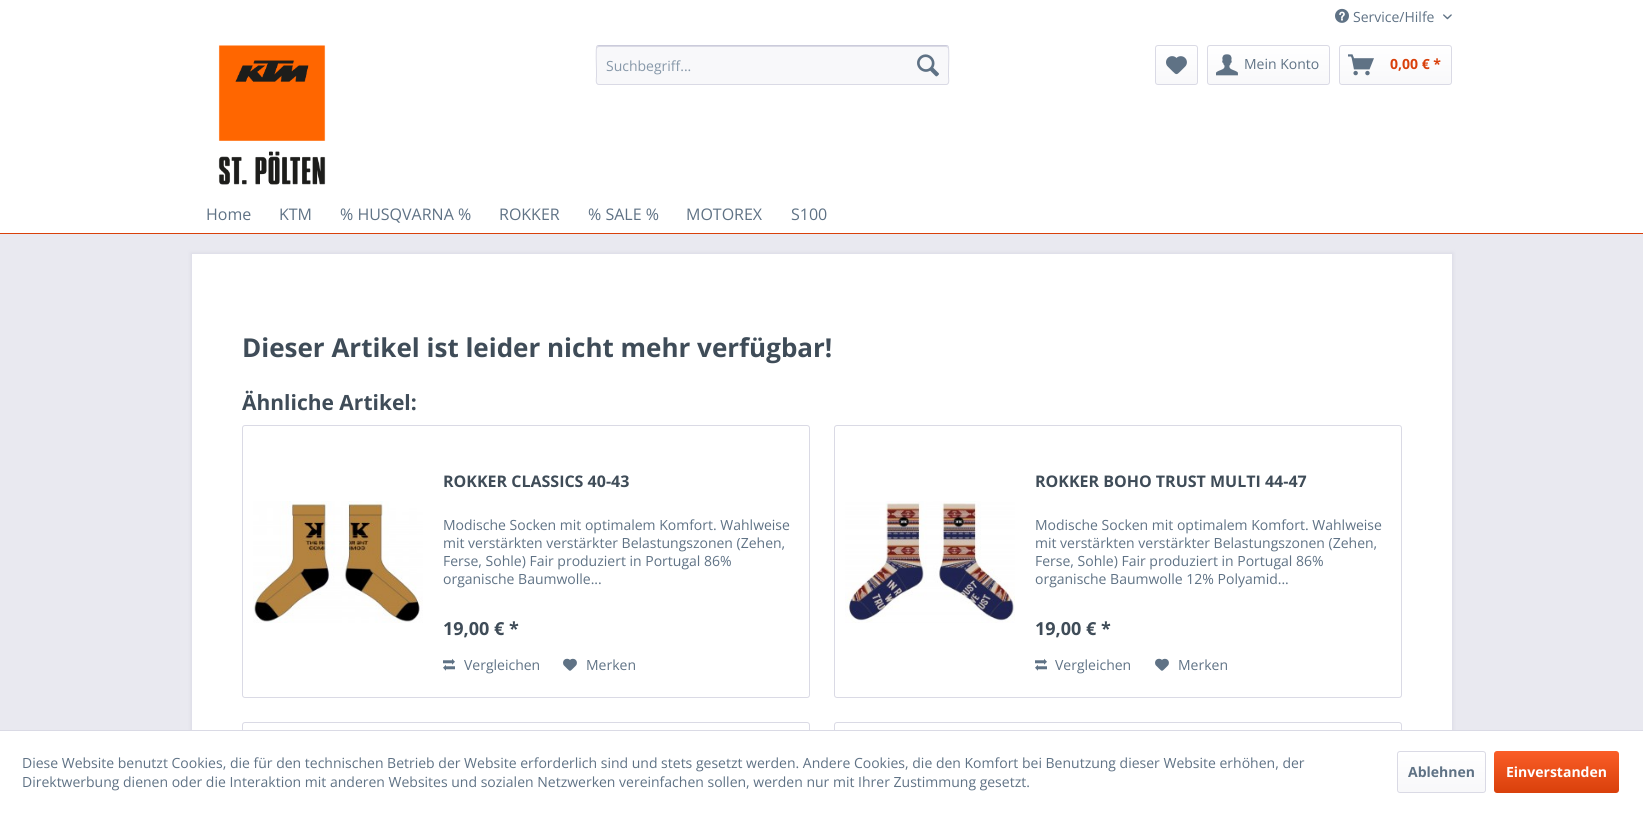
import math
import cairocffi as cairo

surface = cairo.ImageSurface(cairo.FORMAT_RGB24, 1643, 813)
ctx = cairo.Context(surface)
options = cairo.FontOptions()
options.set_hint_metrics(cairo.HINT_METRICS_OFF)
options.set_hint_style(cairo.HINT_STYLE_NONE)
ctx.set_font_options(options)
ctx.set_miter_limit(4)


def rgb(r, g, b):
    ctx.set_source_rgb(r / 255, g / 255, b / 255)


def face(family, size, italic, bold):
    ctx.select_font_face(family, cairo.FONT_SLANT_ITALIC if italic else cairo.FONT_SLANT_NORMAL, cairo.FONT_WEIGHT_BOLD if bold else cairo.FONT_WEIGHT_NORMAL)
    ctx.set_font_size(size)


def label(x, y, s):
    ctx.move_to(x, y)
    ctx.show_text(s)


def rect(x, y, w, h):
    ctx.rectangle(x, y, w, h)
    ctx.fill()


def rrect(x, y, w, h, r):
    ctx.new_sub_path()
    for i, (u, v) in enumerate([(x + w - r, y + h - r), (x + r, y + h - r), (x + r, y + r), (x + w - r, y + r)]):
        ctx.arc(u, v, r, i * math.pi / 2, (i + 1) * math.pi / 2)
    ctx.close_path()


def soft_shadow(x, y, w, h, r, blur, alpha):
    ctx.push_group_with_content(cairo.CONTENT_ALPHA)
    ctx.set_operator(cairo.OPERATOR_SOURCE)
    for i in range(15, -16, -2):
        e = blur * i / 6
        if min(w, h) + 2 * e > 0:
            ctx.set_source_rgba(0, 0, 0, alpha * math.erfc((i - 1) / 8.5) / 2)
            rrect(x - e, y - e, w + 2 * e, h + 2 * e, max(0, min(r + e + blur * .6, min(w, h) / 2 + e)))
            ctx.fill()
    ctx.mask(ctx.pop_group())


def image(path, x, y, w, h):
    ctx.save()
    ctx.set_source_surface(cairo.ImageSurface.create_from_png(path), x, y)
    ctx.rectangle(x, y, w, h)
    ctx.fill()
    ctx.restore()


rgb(233, 233, 240)
ctx.paint()
rgb(255, 255, 255)
rect(0, 0, 1643, 233)
image('image0.png', 1335, 8, 14, 15)
face('Open Sans', 14, 0, 0)
rgb(95, 114, 133)
label(1353, 22, 'Service/Hilfe')
image('image1.png', 1443, 14, 9, 6)
image('image2.png', 218, 45, 108, 140)
rgb(248, 248, 250)
rrect(596, 45, 353, 40, 3)
ctx.fill()
rgb(218, 218, 229)
ctx.new_path()
ctx.move_to(599, 47)
ctx.line_to(946, 47)
ctx.curve_to(947, 47, 948, 48, 948, 49)
ctx.curve_to(948, 48, 948, 46, 946, 46)
ctx.line_to(599, 46)
ctx.curve_to(597, 46, 597, 48, 597, 49)
ctx.curve_to(597, 48, 598, 47, 599, 47)
ctx.close_path()
ctx.fill()
ctx.new_path()
ctx.move_to(597, 46)
ctx.line_to(599, 45.5)
ctx.line_to(946, 45.5)
ctx.line_to(948, 46)
rgb(203, 203, 219)
ctx.set_line_width(1)
ctx.stroke()
ctx.new_path()
ctx.move_to(948, 46)
ctx.curve_to(949.5, 48, 948.5, 67, 948.5, 70.5)
ctx.line_to(948.5, 76.5)
ctx.curve_to(948.5, 78, 950, 84.5, 946, 84.5)
ctx.line_to(599, 84.5)
ctx.curve_to(595, 84.5, 596.5, 78, 596.5, 76.5)
ctx.line_to(596.5, 70.5)
ctx.curve_to(596.5, 67, 595.5, 48, 597, 46)
rgb(218, 218, 229)
ctx.stroke()
rgb(135, 152, 169)
label(606, 71, 'Suchbegriff...')
image('image3.png', 917, 54, 22, 23)
gradient = cairo.LinearGradient(1177, 46, 1177, 84)
gradient.add_color_stop_rgba(0, 1, 1, 1, 1)
gradient.add_color_stop_rgba(1, 0.973, 0.973, 0.98, 1)
ctx.set_source(gradient)
rrect(1156, 46, 41, 38, 2)
ctx.fill()
rrect(1155.5, 45.5, 42, 39, 2.5)
rgb(218, 218, 229)
ctx.stroke()
image('image4.png', 1166, 56, 21, 19)
gradient = cairo.LinearGradient(1269, 46, 1269, 84)
gradient.add_color_stop_rgba(0, 1, 1, 1, 1)
gradient.add_color_stop_rgba(1, 0.973, 0.973, 0.98, 1)
ctx.set_source(gradient)
rrect(1208, 46, 121, 38, 2)
ctx.fill()
rrect(1207.5, 45.5, 122, 39, 2.5)
rgb(218, 218, 229)
ctx.stroke()
image('image5.png', 1216, 54, 22, 22)
rgb(95, 114, 133)
label(1244, 69, 'Mein Konto')
gradient = cairo.LinearGradient(1396, 46, 1396, 84)
gradient.add_color_stop_rgba(0, 1, 1, 1, 1)
gradient.add_color_stop_rgba(1, 0.973, 0.973, 0.98, 1)
ctx.set_source(gradient)
rrect(1340, 46, 111, 38, 2)
ctx.fill()
rrect(1339.5, 45.5, 112, 39, 2.5)
rgb(218, 218, 229)
ctx.stroke()
image('image6.png', 1348, 54, 26, 22)
face('Open Sans', 14, 0, 1)
rgb(217, 64, 11)
label(1390, 69, '0,00 € *')
rect(0, 233, 1643, 1)
face('Open Sans', 16, 0, 0)
rgb(95, 114, 133)
label(206, 220, 'Home')
label(279, 220, 'KTM')
label(340, 220, '% HUSQVARNA %')
label(499, 220, 'ROKKER')
label(588, 220, '% SALE %')
label(686, 220, 'MOTOREX')
label(791, 220, 'S100')
rgb(218, 218, 229)
soft_shadow(191, 253, 1262, 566, 0, 2, 1)
rgb(255, 255, 255)
rect(192, 254, 1260, 476)
face('Open Sans', 26, 0, 1)
rgb(63, 76, 88)
label(242, 357, 'Dieser Artikel ist leider nicht mehr verfügbar!')
face('Open Sans', 21, 0, 1)
label(242, 410, 'Ähnliche Artikel:')
rrect(242.5, 425.5, 567, 272, 2.5)
rgb(218, 218, 229)
ctx.stroke()
face('Open Sans', 16, 0, 1)
rgb(63, 76, 88)
label(443, 487, 'ROKKER CLASSICS 40-43')
image('image7.png', 253, 501, 170, 122)
face('Open Sans', 14, 0, 0)
rgb(95, 114, 133)
label(443, 530, 'Modische Socken mit optimalem Komfort. Wahlweise')
label(443, 548, 'mit verstärkten verstärkter Belastungszonen (Zehen,')
label(443, 566, 'Ferse, Sohle) Fair produziert in Portugal 86%')
label(443, 584, 'organische Baumwolle...')
face('Open Sans', 18, 0, 1)
rgb(63, 76, 88)
label(443, 635, '19,00 € *')
image('image8.png', 443, 658, 12, 13)
face('Open Sans', 14, 0, 0)
rgb(95, 114, 133)
label(464, 670, 'Vergleichen')
image('image9.png', 563, 658, 14, 13)
label(586, 670, 'Merken')
rrect(834.5, 425.5, 567, 272, 2.5)
rgb(218, 218, 229)
ctx.stroke()
face('Open Sans', 16, 0, 1)
rgb(63, 76, 88)
label(1035, 487, 'ROKKER BOHO TRUST MULTI 44-47')
image('image10.png', 845, 501, 170, 122)
face('Open Sans', 14, 0, 0)
rgb(95, 114, 133)
label(1035, 530, 'Modische Socken mit optimalem Komfort. Wahlweise')
label(1035, 548, 'mit verstärkten verstärkter Belastungszonen (Zehen,')
label(1035, 566, 'Ferse, Sohle) Fair produziert in Portugal 86%')
label(1035, 584, 'organische Baumwolle 12% Polyamid...')
face('Open Sans', 18, 0, 1)
rgb(63, 76, 88)
label(1035, 635, '19,00 € *')
image('image8.png', 1035, 658, 12, 13)
face('Open Sans', 14, 0, 0)
rgb(95, 114, 133)
label(1055, 670, 'Vergleichen')
image('image9.png', 1155, 658, 14, 13)
label(1178, 670, 'Merken')
rrect(242.5, 722.5, 567, 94, 2.5)
rgb(218, 218, 229)
ctx.stroke()
rrect(834.5, 722.5, 567, 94, 2.5)
ctx.stroke()
rgb(255, 255, 255)
rect(0, 731, 1643, 82)
rgb(218, 218, 229)
rect(0, 730, 1643, 1)
rgb(95, 114, 133)
label(22, 768, 'Diese Website benutzt Cookies, die für den technischen Betrieb der Website erforderlich sind und stets gesetzt werden. Andere Cookies, die den Komfort bei Benutzung dieser Website erhöhen, der')
label(22, 787, 'Direktwerbung dienen oder die Interaktion mit anderen Websites und sozialen Netzwerken vereinfachen sollen, werden nur mit Ihrer Zustimmung gesetzt.')
gradient = cairo.LinearGradient(1442, 752, 1442, 792)
gradient.add_color_stop_rgba(0, 1, 1, 1, 1)
gradient.add_color_stop_rgba(1, 0.973, 0.973, 0.98, 1)
ctx.set_source(gradient)
rrect(1398, 752, 87, 40, 2)
ctx.fill()
rrect(1397.5, 751.5, 88, 41, 2.5)
rgb(218, 218, 229)
ctx.stroke()
face('Open Sans', 14, 0, 1)
rgb(95, 114, 133)
label(1408, 777, 'Ablehnen')
gradient = cairo.LinearGradient(1557, 751, 1557, 793)
gradient.add_color_stop_rgba(0, 0.98, 0.365, 0.153, 1)
gradient.add_color_stop_rgba(1, 0.851, 0.251, 0.043, 1)
ctx.set_source(gradient)
rrect(1494, 751, 125, 42, 3)
ctx.fill()
rgb(255, 255, 255)
label(1506, 777, 'Einverstanden')
surface.write_to_png('render.png')
